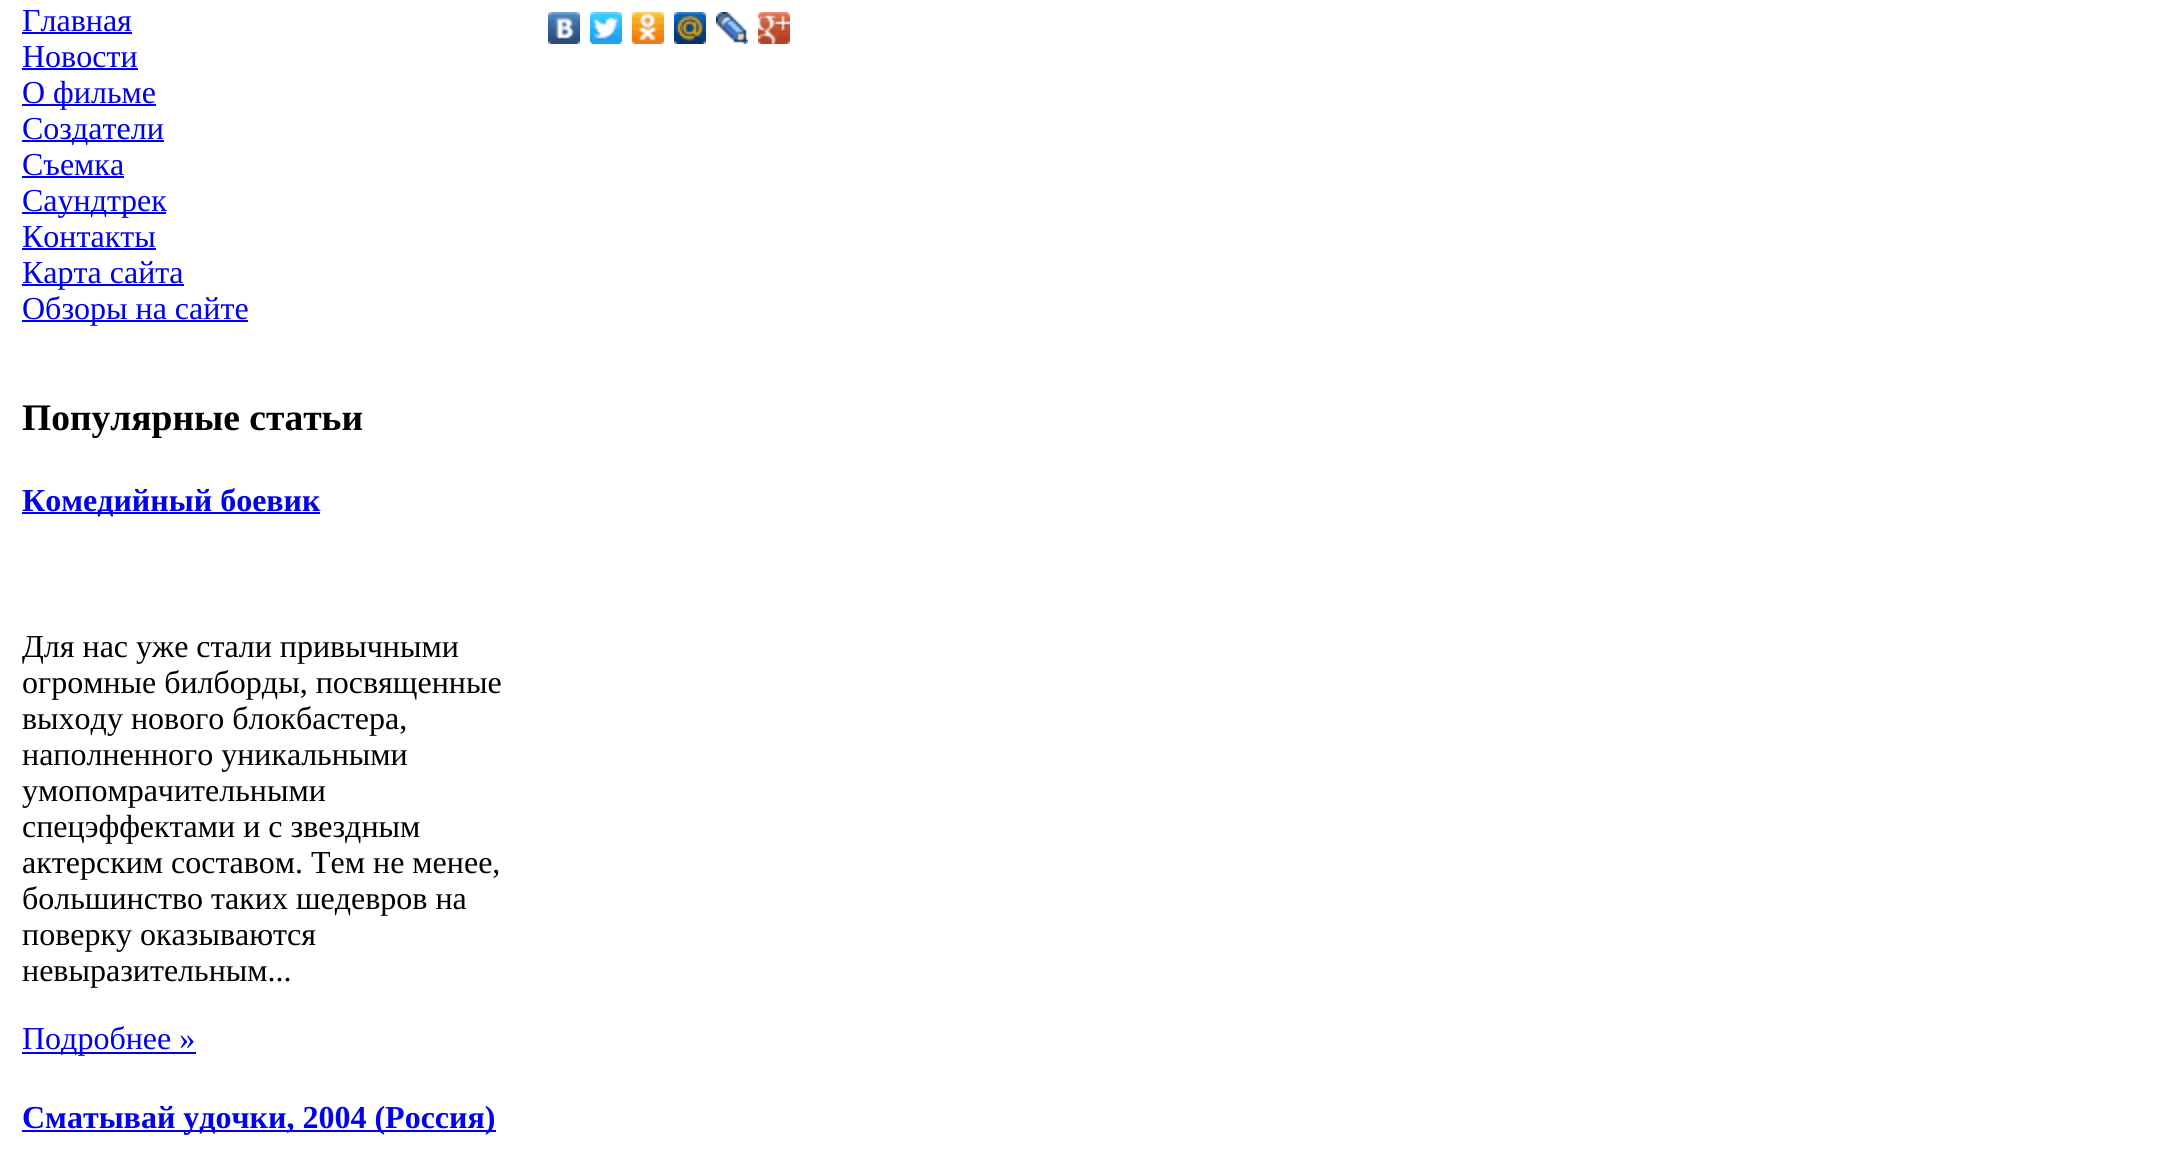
import math
import cairocffi as cairo

surface = cairo.ImageSurface(cairo.FORMAT_RGB24, 2174, 1150)
ctx = cairo.Context(surface)
options = cairo.FontOptions()
options.set_hint_metrics(cairo.HINT_METRICS_OFF)
options.set_hint_style(cairo.HINT_STYLE_NONE)
ctx.set_font_options(options)
ctx.set_miter_limit(4)


def rgb(r, g, b):
    ctx.set_source_rgb(r / 255, g / 255, b / 255)


def face(family, size, italic, bold):
    ctx.select_font_face(family, cairo.FONT_SLANT_ITALIC if italic else cairo.FONT_SLANT_NORMAL, cairo.FONT_WEIGHT_BOLD if bold else cairo.FONT_WEIGHT_NORMAL)
    ctx.set_font_size(size)


def label(x, y, s):
    ctx.move_to(x, y)
    ctx.show_text(s)


def rect(x, y, w, h):
    ctx.rectangle(x, y, w, h)
    ctx.fill()


def image(path, x, y, w, h):
    ctx.save()
    ctx.set_source_surface(cairo.ImageSurface.create_from_png(path), x, y)
    ctx.rectangle(x, y, w, h)
    ctx.fill()
    ctx.restore()


rgb(255, 255, 255)
ctx.paint()
face('Liberation Serif', 32, 0, 0)
rgb(0, 0, 238)
label(22, 31, 'Главная')
rect(22, 32, 110, 2)
label(22, 67, 'Новости')
rect(22, 68, 116, 2)
rect(22, 104, 134, 2)
label(22, 103, 'О фильме')
rect(22, 140, 142, 2)
label(22, 139, 'Создатели')
label(22, 175, 'Съемка')
rect(22, 176, 102, 2)
rect(22, 212, 144, 2)
label(22, 211, 'Саундтрек')
label(22, 247, 'Контакты')
rect(22, 248, 134, 2)
rect(22, 284, 162, 2)
label(22, 283, 'Карта сайта')
rect(22, 320, 226, 2)
label(22, 319, 'Обзоры на сайте')
face('Liberation Serif', 37.5, 0, 1)
rgb(0, 0, 0)
label(22, 430, 'Популярные статьи')
rgb(0, 0, 238)
rect(22, 512, 298, 2)
face('Liberation Serif', 32, 0, 1)
label(22, 511, 'Комедийный боевик')
face('Liberation Serif', 32, 0, 0)
rgb(0, 0, 0)
label(22, 657, 'Для нас уже стали привычными')
label(22, 693, 'огромные билборды, посвященные')
label(22, 729, 'выходу нового блокбастера,')
label(22, 765, 'наполненного уникальными')
label(22, 801, 'умопомрачительными')
label(22, 837, 'спецэффектами и с звездным')
label(22, 873, 'актерским составом. Тем не менее,')
label(22, 909, 'большинство таких шедевров на')
label(22, 945, 'поверку оказываются')
label(22, 981, 'невыразительным...')
rgb(0, 0, 238)
rect(22, 1052, 174, 2)
label(22, 1049, 'Подробнее »')
rect(22, 1130, 474, 2)
face('Liberation Serif', 32, 0, 1)
label(22, 1128, 'Сматывай удочки, 2004 (Россия)')
image('image0.png', 548, 12, 32, 32)
image('image1.png', 590, 12, 32, 32)
image('image2.png', 632, 12, 32, 32)
image('image3.png', 674, 12, 32, 32)
image('image4.png', 716, 12, 32, 32)
image('image5.png', 758, 12, 32, 32)
surface.write_to_png('render.png')
